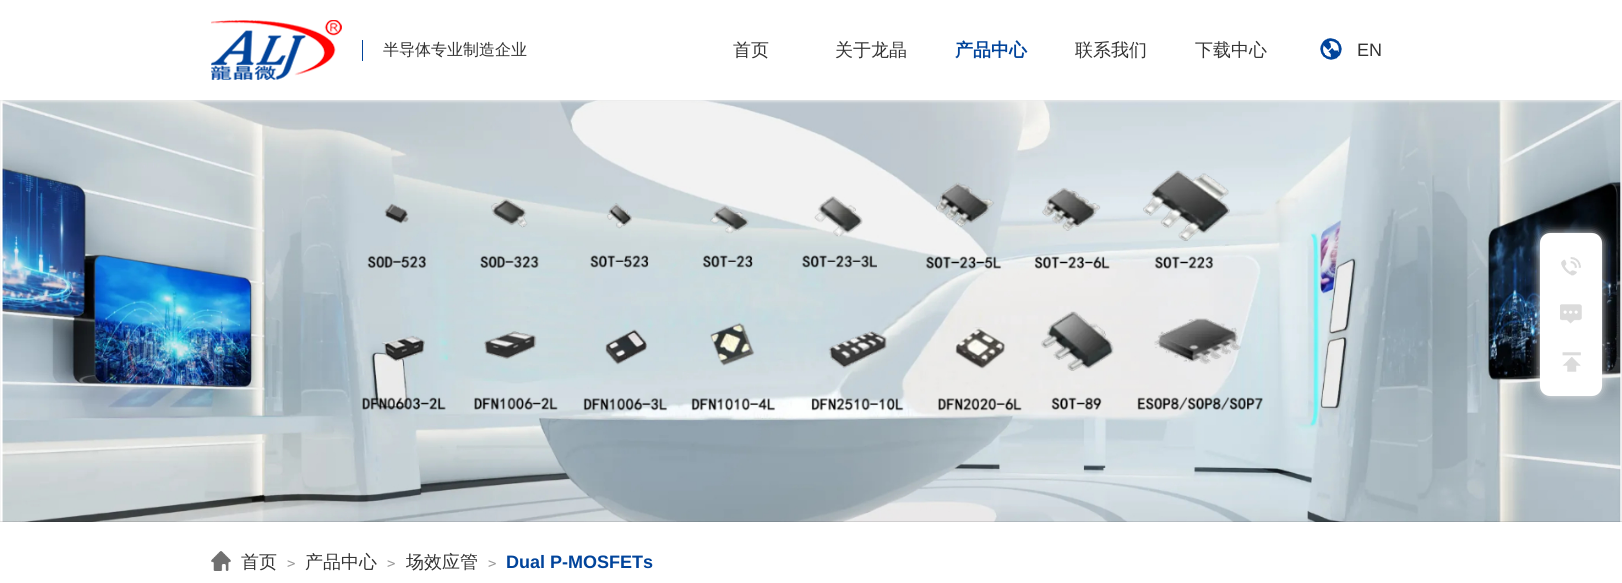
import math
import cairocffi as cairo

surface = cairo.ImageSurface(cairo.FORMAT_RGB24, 1622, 583)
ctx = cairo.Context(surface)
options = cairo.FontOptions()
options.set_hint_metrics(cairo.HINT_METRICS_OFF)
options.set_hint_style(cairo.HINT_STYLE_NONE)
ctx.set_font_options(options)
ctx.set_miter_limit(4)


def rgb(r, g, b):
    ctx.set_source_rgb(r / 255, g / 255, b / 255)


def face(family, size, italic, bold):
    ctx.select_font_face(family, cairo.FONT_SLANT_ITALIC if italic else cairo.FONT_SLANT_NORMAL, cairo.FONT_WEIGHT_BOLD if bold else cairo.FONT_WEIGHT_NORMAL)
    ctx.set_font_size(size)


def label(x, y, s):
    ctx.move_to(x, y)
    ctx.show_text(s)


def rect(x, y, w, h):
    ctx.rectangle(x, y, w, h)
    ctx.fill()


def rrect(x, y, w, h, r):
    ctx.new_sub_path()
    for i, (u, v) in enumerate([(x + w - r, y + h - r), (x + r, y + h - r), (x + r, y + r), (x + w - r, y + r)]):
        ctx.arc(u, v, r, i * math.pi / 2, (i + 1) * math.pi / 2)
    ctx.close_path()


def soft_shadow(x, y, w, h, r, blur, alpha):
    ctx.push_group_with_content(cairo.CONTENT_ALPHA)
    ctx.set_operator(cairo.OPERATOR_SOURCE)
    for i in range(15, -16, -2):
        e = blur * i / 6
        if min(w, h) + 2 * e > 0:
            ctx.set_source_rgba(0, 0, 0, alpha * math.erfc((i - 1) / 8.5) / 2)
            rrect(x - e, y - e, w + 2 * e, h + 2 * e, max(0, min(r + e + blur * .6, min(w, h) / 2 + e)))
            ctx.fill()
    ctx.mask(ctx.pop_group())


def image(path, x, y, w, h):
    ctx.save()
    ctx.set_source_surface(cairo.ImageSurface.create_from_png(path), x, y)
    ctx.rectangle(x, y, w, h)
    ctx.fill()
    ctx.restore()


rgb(255, 255, 255)
ctx.paint()
image('image5.png', 0, 100, 1622, 422)
ctx.save()
ctx.rectangle(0, 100, 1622, 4)
ctx.clip()
rgb(239, 239, 239)
soft_shadow(0, 1, 1622, 100, 0, 1.5, 1)
ctx.restore()
image('image0.png', 211, 20, 131, 60)
rgb(1, 68, 155)
rect(362, 40, 1, 21)
face('WenQuanYi Zen Hei Medium', 16, 0, 0)
rgb(51, 51, 51)
label(383, 55, '半导体专业制造企业')
face('WenQuanYi Zen Hei Medium', 18, 0, 0)
label(733, 56, '首页')
label(835, 56, '关于龙晶')
face('WenQuanYi Zen Hei', 18, 0, 1)
rgb(1, 68, 155)
label(955, 56, '产品中心')
face('WenQuanYi Zen Hei Medium', 18, 0, 0)
rgb(51, 51, 51)
label(1075, 56, '联系我们')
label(1195, 56, '下载中心')
image('image1.png', 1320, 38, 22, 22)
face('Liberation Sans', 18, 0, 0)
label(1357, 56, 'EN')
rgb(239, 239, 239)
soft_shadow(1540, 233, 62, 163, 10, 5, 1)
rgb(255, 255, 255)
rrect(1540, 233, 62, 163, 10)
ctx.fill()
image('image2.png', 1561, 257, 20, 19)
image('image3.png', 1560, 304, 22, 20)
image('image4.png', 1562, 352, 19, 20)
image('image6.png', 211, 551, 20, 20)
face('WenQuanYi Zen Hei Medium', 18, 0, 0)
rgb(51, 51, 51)
label(241, 568, '首页')
face('DejaVu Sans Mono', 14, 0, 0)
rgb(153, 153, 153)
label(287, 568, '>')
face('WenQuanYi Zen Hei Medium', 18, 0, 0)
rgb(51, 51, 51)
label(305, 568, '产品中心')
face('DejaVu Sans Mono', 14, 0, 0)
rgb(153, 153, 153)
label(387, 568, '>')
face('WenQuanYi Zen Hei Medium', 18, 0, 0)
rgb(51, 51, 51)
label(406, 568, '场效应管')
face('DejaVu Sans Mono', 14, 0, 0)
rgb(153, 153, 153)
label(488, 568, '>')
face('Liberation Sans', 18, 0, 1)
rgb(1, 68, 155)
label(506, 568, 'Dual P-MOSFETs')
surface.write_to_png('render.png')
